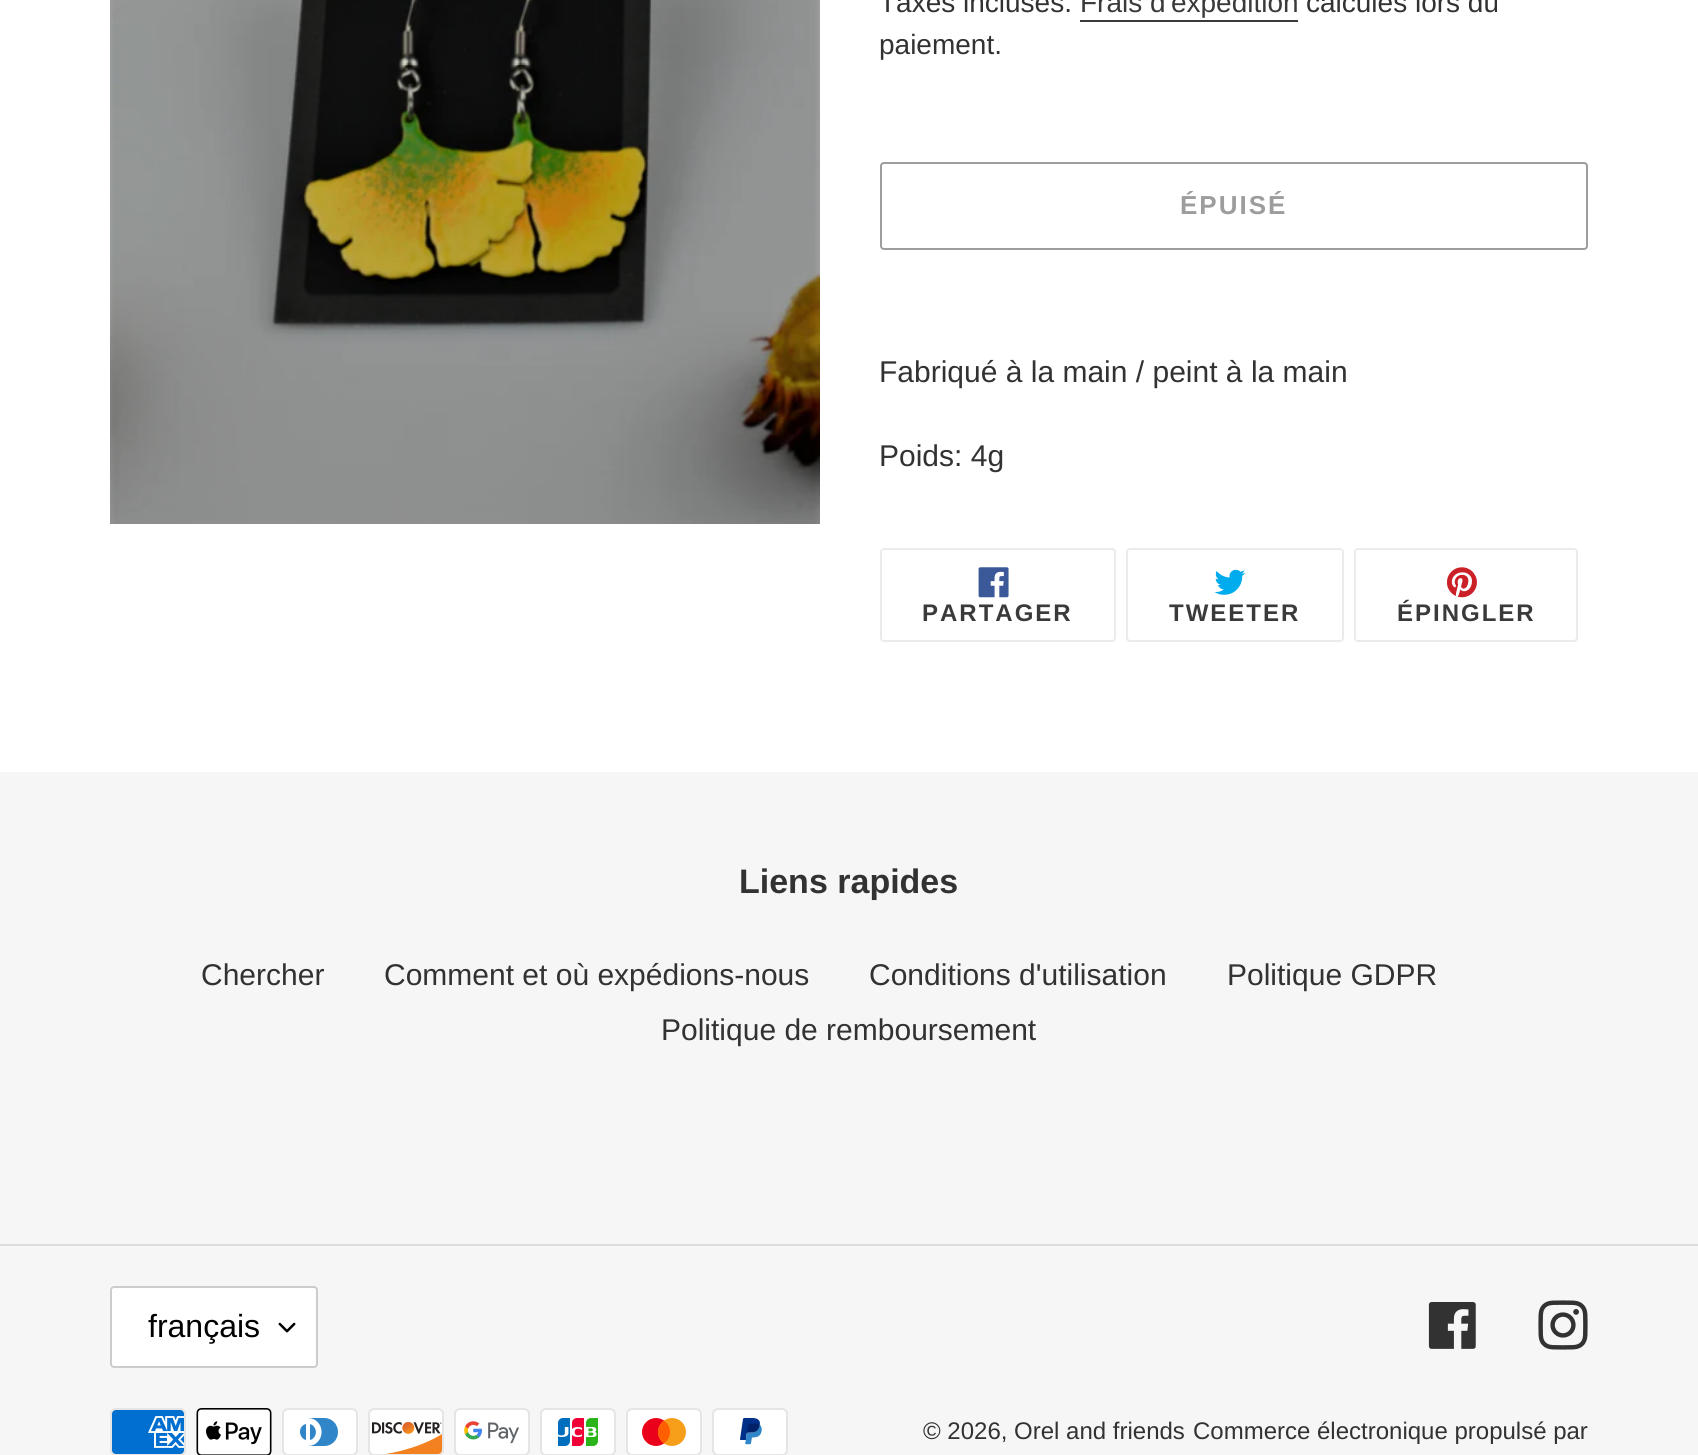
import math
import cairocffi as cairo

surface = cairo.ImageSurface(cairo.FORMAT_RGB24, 1698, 1455)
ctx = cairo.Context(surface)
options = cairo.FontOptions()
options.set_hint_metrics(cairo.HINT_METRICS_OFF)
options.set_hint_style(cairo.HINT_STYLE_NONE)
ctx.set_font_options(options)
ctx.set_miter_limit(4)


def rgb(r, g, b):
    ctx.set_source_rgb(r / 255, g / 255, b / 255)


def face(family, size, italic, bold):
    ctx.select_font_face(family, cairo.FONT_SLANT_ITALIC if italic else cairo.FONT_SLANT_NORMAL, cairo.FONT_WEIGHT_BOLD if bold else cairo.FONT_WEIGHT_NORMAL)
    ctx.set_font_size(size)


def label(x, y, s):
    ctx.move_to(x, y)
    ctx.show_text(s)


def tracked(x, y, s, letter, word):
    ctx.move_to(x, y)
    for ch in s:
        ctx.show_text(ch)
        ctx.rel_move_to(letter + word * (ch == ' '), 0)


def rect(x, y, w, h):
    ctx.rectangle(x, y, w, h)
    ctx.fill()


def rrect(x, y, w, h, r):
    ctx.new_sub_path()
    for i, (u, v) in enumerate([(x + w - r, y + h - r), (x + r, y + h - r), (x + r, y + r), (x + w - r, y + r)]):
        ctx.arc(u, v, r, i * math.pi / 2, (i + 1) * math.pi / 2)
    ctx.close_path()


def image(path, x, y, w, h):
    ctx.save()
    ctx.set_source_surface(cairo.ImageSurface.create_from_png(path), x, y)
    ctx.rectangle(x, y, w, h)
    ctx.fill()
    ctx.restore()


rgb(255, 255, 255)
ctx.paint()
image('image0.png', 110, 0, 710, 524)
face('Liberation Sans', 28, 0, 0)
rgb(51, 50, 50)
label(879, 12, 'Taxes incluses.')
rgb(58, 58, 58)
label(1080, 12, 'Frais d\'expédition')
rect(1080, 20, 218, 2)
rgb(51, 50, 50)
label(1306, 12, 'calculés lors du')
label(879, 54, 'paiement.')
rrect(881, 163, 706, 86, 3)
rgb(157, 157, 157)
ctx.stroke()
face('Liberation Sans', 26, 0, 1)
tracked(1180, 214, 'ÉPUISÉ', 2, 0)
face('Liberation Sans', 30, 0, 0)
rgb(51, 50, 50)
label(879, 382, 'Fabriqué à la main / peint à la main')
label(879, 466, 'Poids: 4g')
rrect(881, 549, 234, 92, 3)
rgb(235, 235, 235)
ctx.stroke()
image('image1.png', 978, 567, 31, 31)
face('Liberation Sans', 24, 0, 1)
rgb(58, 58, 58)
tracked(922, 621, 'PARTAGER', 2, 0)
rrect(1127, 549, 216, 92, 3)
rgb(235, 235, 235)
ctx.stroke()
image('image2.png', 1214, 569, 32, 26)
rgb(58, 58, 58)
tracked(1169, 621, 'TWEETER', 2, 0)
rrect(1355, 549, 222, 92, 3)
rgb(235, 235, 235)
ctx.stroke()
image('image3.png', 1446, 567, 31, 31)
rgb(58, 58, 58)
tracked(1397, 621, 'ÉPINGLER', 2, 0)
rgb(246, 246, 246)
rect(0, 772, 1698, 683)
face('Liberation Sans', 34, 0, 1)
rgb(51, 50, 50)
label(739, 893, 'Liens rapides')
face('Liberation Sans', 30, 0, 0)
label(201, 985, 'Chercher')
label(384, 985, 'Comment et où expédions-nous')
label(869, 985, 'Conditions d\'utilisation')
label(1227, 985, 'Politique GDPR')
label(661, 1040, 'Politique de remboursement')
rgb(221, 221, 221)
rect(0, 1244, 1698, 2)
rgb(255, 255, 255)
rrect(110, 1286, 208, 82, 4)
ctx.fill()
image('image4.png', 278, 1322, 18, 11)
rrect(111, 1287, 206, 80, 3)
rgb(204, 204, 204)
ctx.stroke()
face('Liberation Sans', 32, 0, 0)
rgb(0, 0, 0)
label(148, 1337, 'français')
image('image5.png', 1428, 1302, 48, 47)
image('image6.png', 1538, 1300, 50, 50)
image('image7.png', 110, 1408, 76, 47)
image('image8.png', 196, 1408, 76, 47)
image('image9.png', 282, 1408, 76, 47)
image('image10.png', 368, 1408, 76, 47)
image('image11.png', 454, 1408, 76, 47)
image('image12.png', 540, 1408, 76, 47)
image('image13.png', 626, 1408, 76, 47)
image('image14.png', 712, 1408, 76, 47)
face('Liberation Sans', 24, 0, 0)
rgb(51, 50, 50)
label(923, 1439, '© 2026, Orel and friends')
label(1193, 1439, 'Commerce électronique propulsé par')
surface.write_to_png('render.png')
